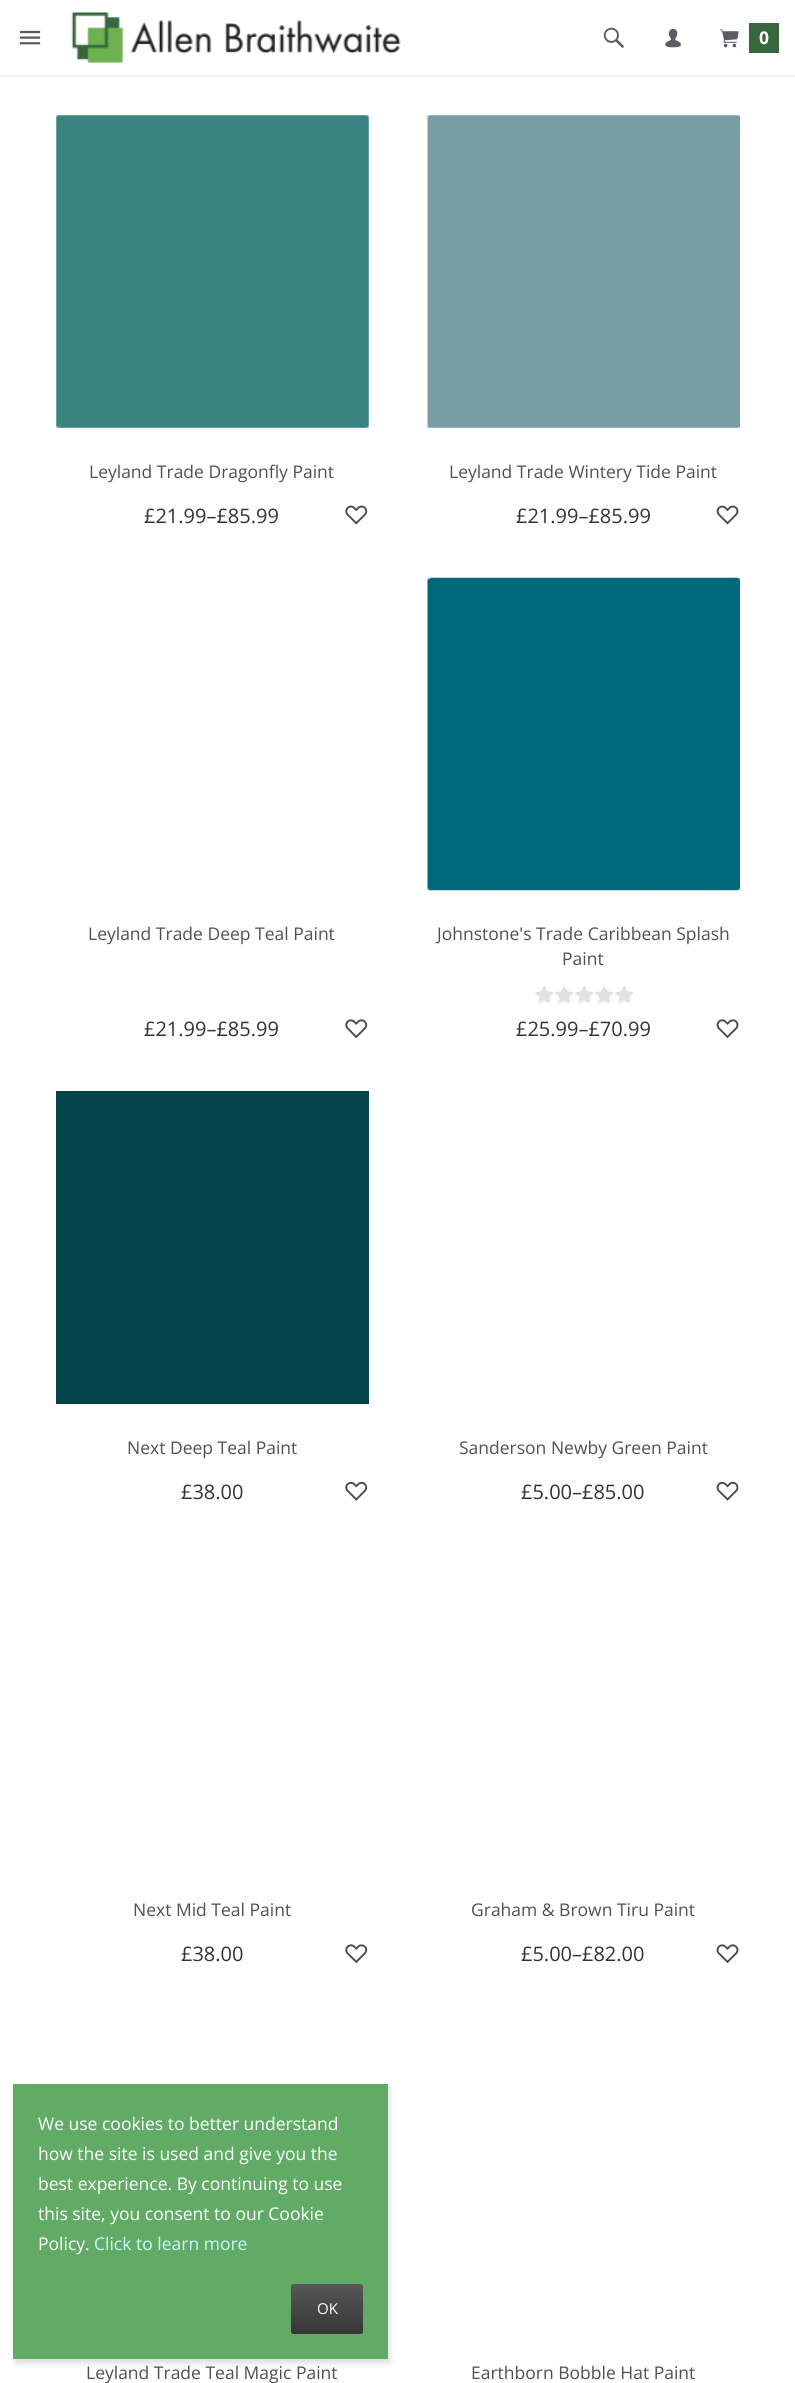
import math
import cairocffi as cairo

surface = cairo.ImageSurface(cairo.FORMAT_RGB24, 795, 2383)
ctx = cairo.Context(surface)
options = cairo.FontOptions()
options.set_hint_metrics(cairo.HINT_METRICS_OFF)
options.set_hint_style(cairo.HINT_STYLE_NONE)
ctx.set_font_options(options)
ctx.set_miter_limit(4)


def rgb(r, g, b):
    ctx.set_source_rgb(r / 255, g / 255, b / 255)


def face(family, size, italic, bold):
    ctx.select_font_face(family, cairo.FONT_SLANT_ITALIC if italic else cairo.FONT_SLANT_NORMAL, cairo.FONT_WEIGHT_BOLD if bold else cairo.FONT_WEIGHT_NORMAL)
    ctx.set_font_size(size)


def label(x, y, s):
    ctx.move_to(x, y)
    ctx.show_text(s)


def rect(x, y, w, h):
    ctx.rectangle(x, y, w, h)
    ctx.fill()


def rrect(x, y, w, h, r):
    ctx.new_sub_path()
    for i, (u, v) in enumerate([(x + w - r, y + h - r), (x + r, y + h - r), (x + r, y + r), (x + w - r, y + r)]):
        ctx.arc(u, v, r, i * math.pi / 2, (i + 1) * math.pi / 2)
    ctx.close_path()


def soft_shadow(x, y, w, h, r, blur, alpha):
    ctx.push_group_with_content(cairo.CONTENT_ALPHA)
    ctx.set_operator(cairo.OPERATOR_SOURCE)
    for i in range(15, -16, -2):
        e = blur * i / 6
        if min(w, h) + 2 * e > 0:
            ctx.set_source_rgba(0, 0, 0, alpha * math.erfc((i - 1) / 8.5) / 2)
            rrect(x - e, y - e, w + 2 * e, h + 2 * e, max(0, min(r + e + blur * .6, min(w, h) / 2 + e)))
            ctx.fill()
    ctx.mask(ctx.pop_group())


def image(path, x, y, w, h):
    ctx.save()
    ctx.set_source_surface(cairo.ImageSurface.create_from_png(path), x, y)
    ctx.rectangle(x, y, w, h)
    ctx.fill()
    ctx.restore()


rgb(255, 255, 255)
ctx.paint()
rgb(0, 0, 0)
soft_shadow(0, 1, 795, 75, 0, 2, 0.1)
rgb(255, 255, 255)
rect(0, 0, 795, 75)
image('image0.png', 19, 30, 22, 15)
image('image1.png', 71, 12, 330, 51)
image('image2.png', 603, 27, 21, 21)
image('image3.png', 665, 29, 16, 19)
image('image4.png', 720, 29, 19, 19)
rgb(56, 103, 61)
rect(749, 23, 30, 30)
face('Open Sans', 17.5, 0, 1)
rgb(255, 255, 255)
label(759, 44, '0')
image('image5.png', 56, 115, 313, 313)
face('Open Sans', 17.5, 0, 0)
rgb(80, 80, 80)
label(89, 478, 'Leyland Trade Dragonfly Paint')
face('Open Sans', 20, 0, 0)
rgb(51, 51, 51)
label(144, 523, '£21.99–£85.99')
image('image6.png', 345, 505, 23, 20)
image('image7.png', 427, 115, 313, 313)
face('Open Sans', 17.5, 0, 0)
rgb(80, 80, 80)
label(449, 478, 'Leyland Trade Wintery Tide Paint')
face('Open Sans', 20, 0, 0)
rgb(51, 51, 51)
label(516, 523, '£21.99–£85.99')
image('image8.png', 716, 505, 23, 20)
face('Open Sans', 17.5, 0, 0)
rgb(80, 80, 80)
label(88, 940, 'Leyland Trade Deep Teal Paint')
face('Open Sans', 20, 0, 0)
rgb(51, 51, 51)
label(144, 1036, '£21.99–£85.99')
image('image9.png', 345, 1019, 23, 20)
image('image10.png', 427, 577, 313, 314)
face('Open Sans', 17.5, 0, 0)
rgb(80, 80, 80)
label(437, 940, 'Johnstone\'s Trade Caribbean Splash')
label(562, 965, 'Paint')
image('image11.png', 535, 985, 19, 19)
image('image11.png', 555, 985, 19, 19)
image('image11.png', 575, 985, 19, 19)
image('image11.png', 595, 985, 19, 19)
image('image11.png', 615, 985, 19, 19)
face('Open Sans', 20, 0, 0)
rgb(51, 51, 51)
label(516, 1036, '£25.99–£70.99')
image('image12.png', 716, 1019, 23, 20)
rgb(4, 69, 75)
rect(56, 1091, 313, 313)
face('Open Sans', 17.5, 0, 0)
rgb(80, 80, 80)
label(127, 1454, 'Next Deep Teal Paint')
face('Open Sans', 20, 0, 0)
rgb(51, 51, 51)
label(181, 1499, '£38.00')
image('image13.png', 345, 1481, 23, 20)
face('Open Sans', 17.5, 0, 0)
rgb(80, 80, 80)
label(459, 1454, 'Sanderson Newby Green Paint')
face('Open Sans', 20, 0, 0)
rgb(51, 51, 51)
label(521, 1499, '£5.00–£85.00')
image('image14.png', 716, 1481, 23, 20)
face('Open Sans', 17.5, 0, 0)
rgb(80, 80, 80)
label(133, 1916, 'Next Mid Teal Paint')
face('Open Sans', 20, 0, 0)
rgb(51, 51, 51)
label(181, 1961, '£38.00')
image('image9.png', 345, 1944, 23, 20)
face('Open Sans', 17.5, 0, 0)
rgb(80, 80, 80)
label(471, 1916, 'Graham & Brown Tiru Paint')
face('Open Sans', 20, 0, 0)
rgb(51, 51, 51)
label(521, 1961, '£5.00–£82.00')
image('image12.png', 716, 1944, 23, 20)
face('Open Sans', 17.5, 0, 0)
rgb(80, 80, 80)
label(86, 2379, 'Leyland Trade Teal Magic Paint')
label(471, 2379, 'Earthborn Bobble Hat Paint')
rgb(0, 0, 0)
soft_shadow(15, 2088, 375, 275, 0, 3, 0.14)
rgb(98, 171, 102)
rect(13, 2084, 375, 275)
rgb(255, 255, 255)
label(38, 2130, 'We use cookies to better understand')
label(38, 2160, 'how the site is used and give you the')
label(38, 2190, 'best experience. By continuing to use')
label(38, 2220, 'this site, you consent to our Cookie')
label(38, 2250, 'Policy.')
rgb(204, 248, 255)
label(94, 2250, 'Click to learn more')
gradient = cairo.LinearGradient(327, 2284, 327, 2334)
gradient.add_color_stop_rgba(0, 0.341, 0.341, 0.341, 1)
gradient.add_color_stop_rgba(1, 0.212, 0.212, 0.212, 1)
ctx.set_source(gradient)
rrect(291, 2284, 72, 50, 2.5)
ctx.fill()
face('Open Sans', 15, 0, 0)
rgb(255, 255, 255)
label(317, 2314, 'OK')
surface.write_to_png('render.png')
